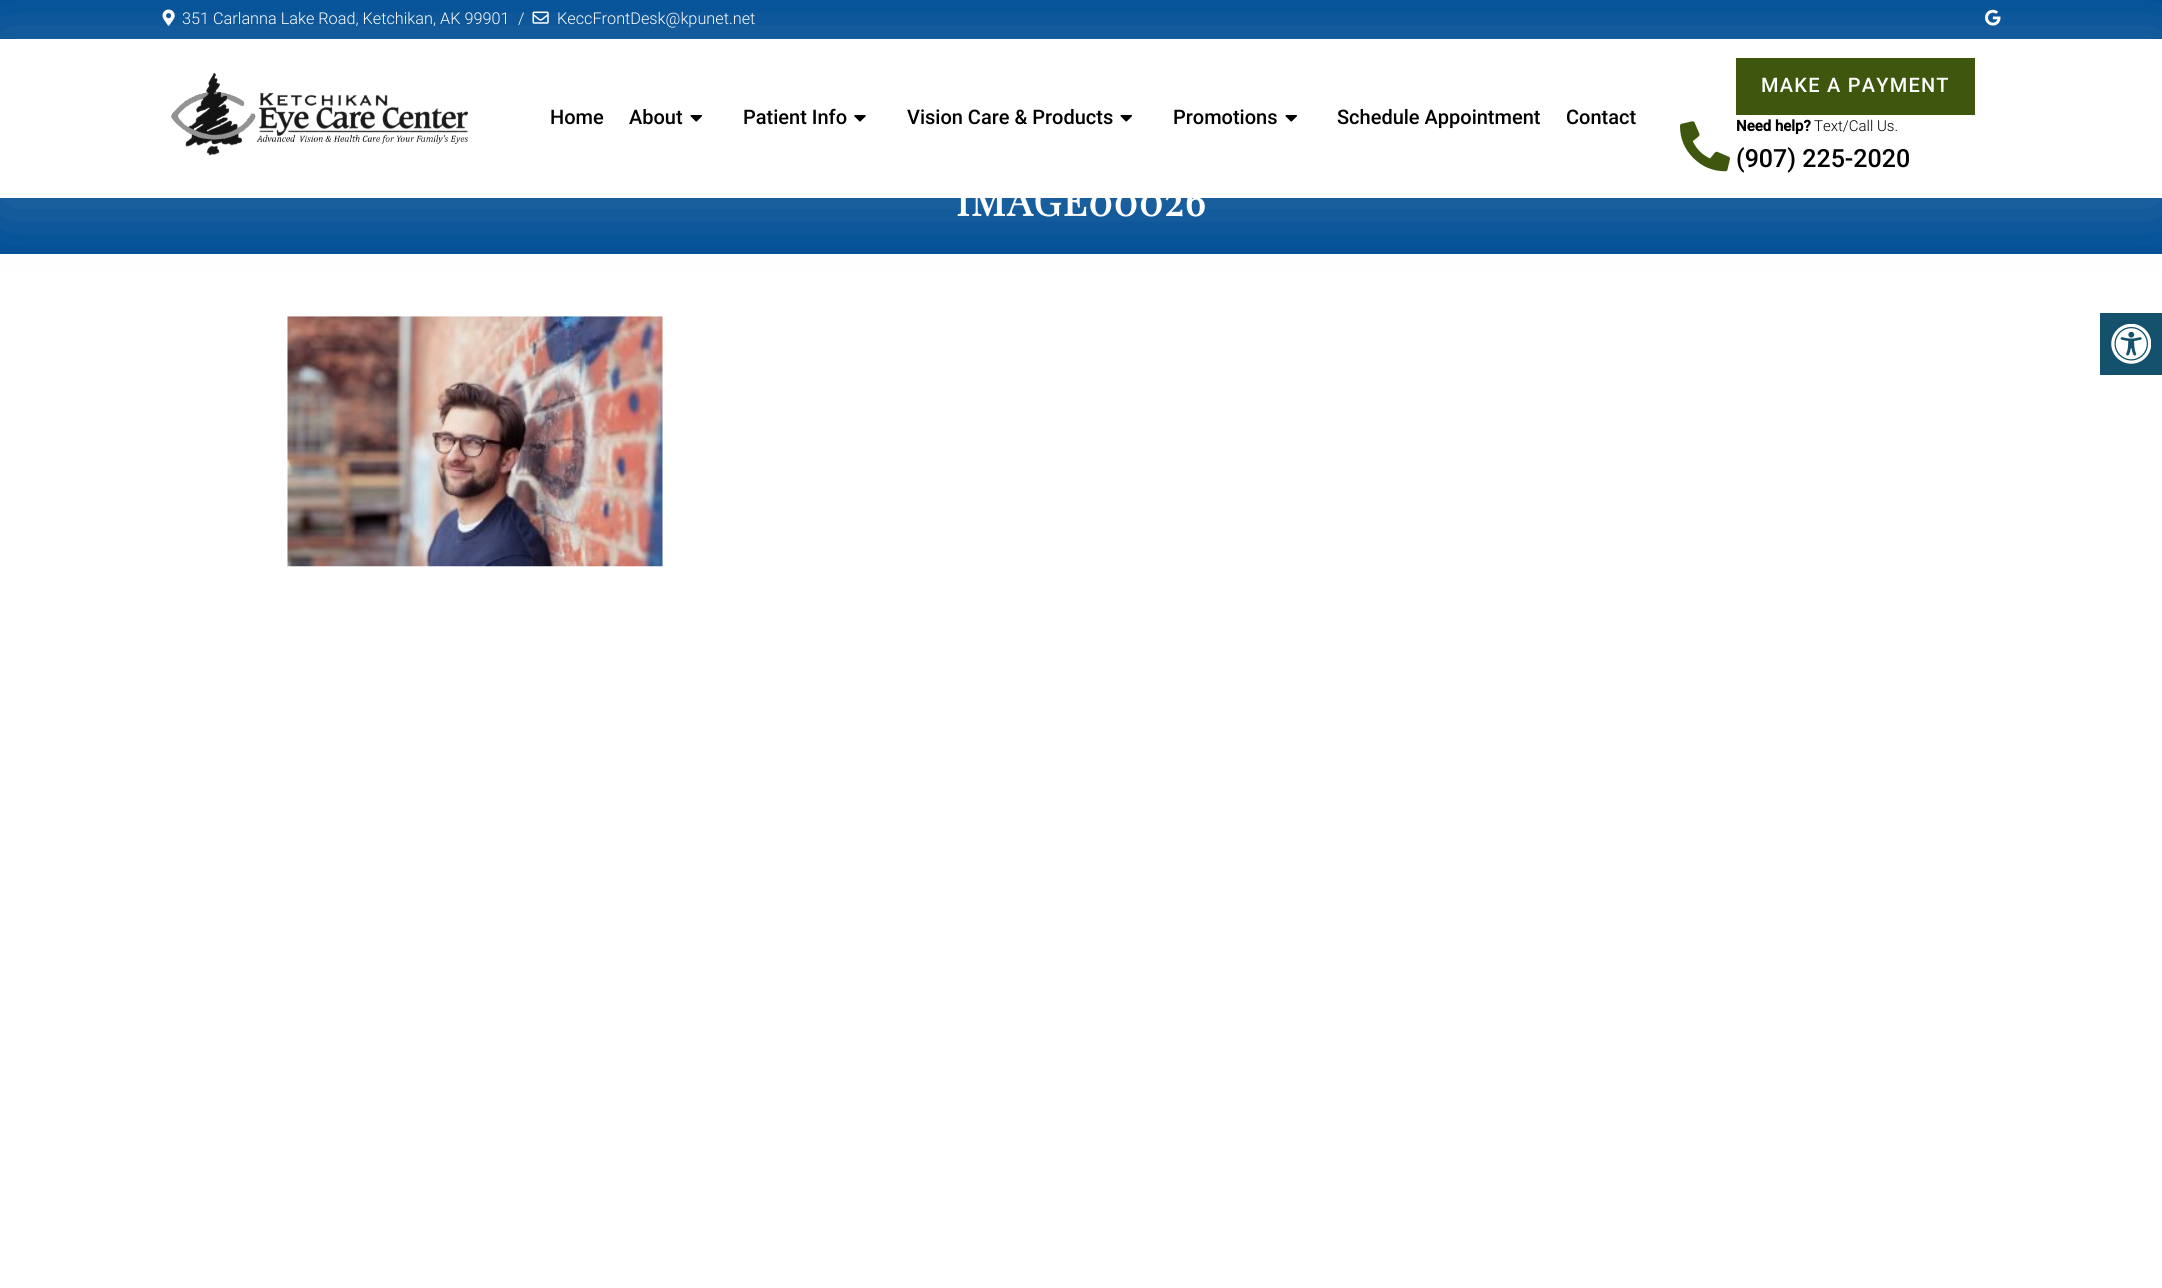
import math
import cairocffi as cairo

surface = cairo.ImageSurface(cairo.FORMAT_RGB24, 2162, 1288)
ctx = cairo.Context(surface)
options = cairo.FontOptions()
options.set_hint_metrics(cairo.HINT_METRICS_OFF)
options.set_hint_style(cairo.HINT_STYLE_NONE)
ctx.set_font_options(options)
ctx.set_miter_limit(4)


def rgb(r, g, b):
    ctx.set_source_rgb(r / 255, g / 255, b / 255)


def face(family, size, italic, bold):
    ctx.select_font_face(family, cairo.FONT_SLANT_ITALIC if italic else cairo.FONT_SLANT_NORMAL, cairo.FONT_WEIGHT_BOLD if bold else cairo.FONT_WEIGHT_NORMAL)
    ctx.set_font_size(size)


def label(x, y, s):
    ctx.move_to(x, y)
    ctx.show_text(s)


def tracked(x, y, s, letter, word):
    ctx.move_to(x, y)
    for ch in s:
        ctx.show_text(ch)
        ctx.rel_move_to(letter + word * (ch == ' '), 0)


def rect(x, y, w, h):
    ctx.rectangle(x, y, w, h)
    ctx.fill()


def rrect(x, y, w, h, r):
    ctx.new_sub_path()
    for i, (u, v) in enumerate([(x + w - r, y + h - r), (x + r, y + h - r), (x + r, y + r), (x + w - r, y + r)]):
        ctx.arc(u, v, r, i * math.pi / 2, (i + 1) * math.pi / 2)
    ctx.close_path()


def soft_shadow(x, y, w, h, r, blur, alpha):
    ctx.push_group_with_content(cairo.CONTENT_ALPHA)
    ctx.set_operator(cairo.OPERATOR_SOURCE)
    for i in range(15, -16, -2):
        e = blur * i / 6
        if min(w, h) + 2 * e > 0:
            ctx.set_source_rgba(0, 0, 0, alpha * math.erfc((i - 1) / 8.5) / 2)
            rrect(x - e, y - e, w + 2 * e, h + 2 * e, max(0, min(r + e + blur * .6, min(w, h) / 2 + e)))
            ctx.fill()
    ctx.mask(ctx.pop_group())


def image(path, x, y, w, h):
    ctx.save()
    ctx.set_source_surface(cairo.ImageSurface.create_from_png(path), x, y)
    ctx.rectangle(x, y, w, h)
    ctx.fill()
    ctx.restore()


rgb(255, 255, 255)
ctx.paint()
rgb(0, 79, 150)
rect(0, 0, 2162, 39)
image('image0.png', 162, 9, 13, 17)
face('Roboto Light', 16.25, 0, 0)
rgb(255, 255, 255)
label(182, 24, '351 Carlanna Lake Road, Ketchikan, AK 99901')
label(518, 24, '/')
image('image1.png', 532, 11, 17, 13)
label(557, 24, 'KeccFrontDesk@kpunet.net')
image('image2.png', 1985, 9, 16, 17)
rgb(0, 79, 150)
rect(0, 198, 2162, 56)
image('image7.png', 287, 316, 376, 251)
rgb(209, 209, 209)
soft_shadow(0, 44, 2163, 159, 0, 37.5, 0.25)
rgb(255, 255, 255)
rect(0, 39, 2162, 159)
image('image3.png', 171, 72, 298, 84)
face('Roboto Medium', 20, 0, 0)
rgb(0, 0, 0)
label(550, 124, 'Home')
label(629, 124, 'About')
image('image4.png', 690, 115, 12, 7)
label(743, 124, 'Patient Info')
image('image5.png', 854, 115, 12, 7)
label(907, 124, 'Vision Care & Products')
image('image4.png', 1120, 115, 12, 7)
label(1173, 124, 'Promotions')
image('image4.png', 1285, 115, 12, 7)
label(1337, 124, 'Schedule Appointment')
label(1566, 124, 'Contact')
rgb(62, 86, 13)
rect(1736, 58, 239, 57)
rgb(255, 255, 255)
tracked(1761, 92, 'MAKE A PAYMENT', 1.25, 0)
image('image6.png', 1680, 121, 50, 51)
face('Roboto', 15, 0, 1)
rgb(0, 0, 0)
label(1736, 131, 'Need help?')
face('Roboto Light', 15, 0, 0)
label(1814, 131, 'Text/Call Us.')
face('Roboto Medium', 25, 0, 0)
label(1736, 167, '(907) 225-2020')
face('Playfair Display', 40, 0, 1)
rgb(255, 255, 255)
tracked(956, 216, 'IMAGE00026', 1.25, 0)
rgb(19, 81, 109)
rect(2100, 313, 62, 62)
image('image8.png', 2111, 324, 40, 40)
surface.write_to_png('render.png')
